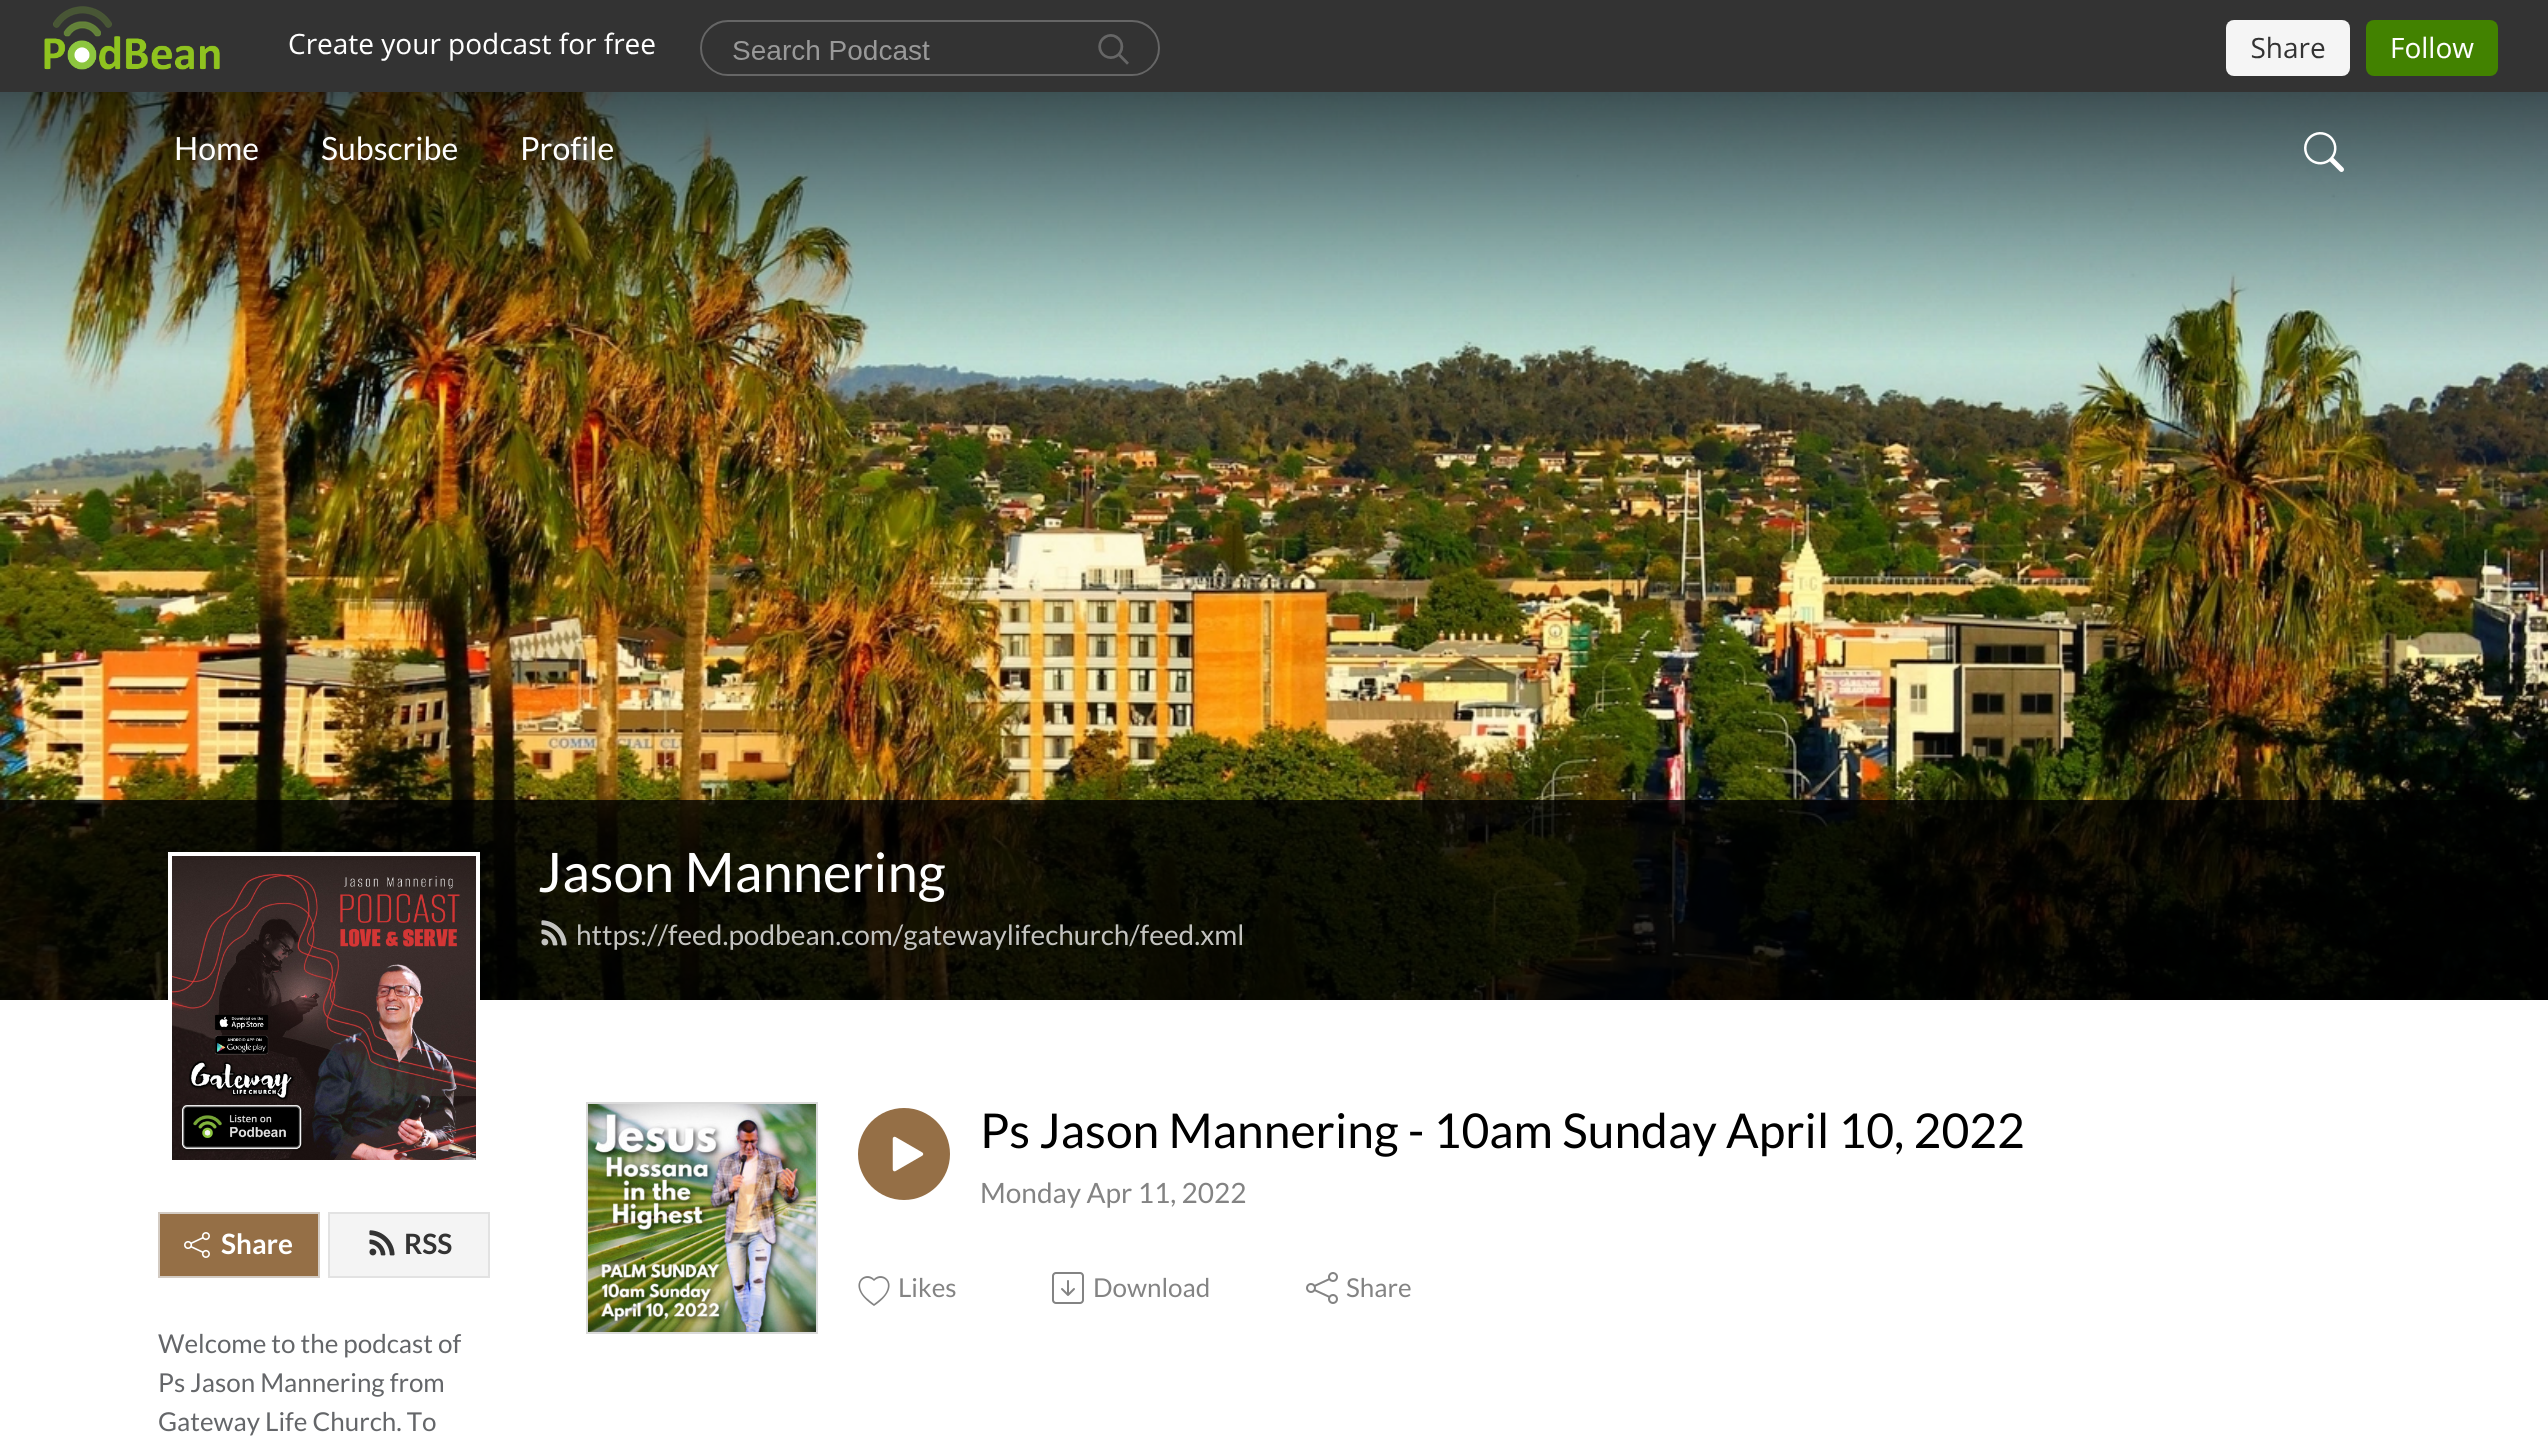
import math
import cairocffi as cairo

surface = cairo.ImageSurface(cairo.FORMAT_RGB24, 2548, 1454)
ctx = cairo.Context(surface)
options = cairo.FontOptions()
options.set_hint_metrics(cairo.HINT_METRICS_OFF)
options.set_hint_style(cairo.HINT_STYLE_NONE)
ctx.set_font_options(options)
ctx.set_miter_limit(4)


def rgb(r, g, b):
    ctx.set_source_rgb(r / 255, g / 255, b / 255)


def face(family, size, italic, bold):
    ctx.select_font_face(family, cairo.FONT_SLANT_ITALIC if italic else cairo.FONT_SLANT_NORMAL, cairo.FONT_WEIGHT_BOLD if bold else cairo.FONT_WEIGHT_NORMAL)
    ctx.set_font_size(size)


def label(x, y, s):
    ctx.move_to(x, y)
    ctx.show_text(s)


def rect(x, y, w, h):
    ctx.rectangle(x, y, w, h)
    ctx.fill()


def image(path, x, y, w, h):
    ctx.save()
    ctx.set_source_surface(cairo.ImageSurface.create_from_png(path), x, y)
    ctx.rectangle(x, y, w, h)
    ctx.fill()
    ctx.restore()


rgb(255, 255, 255)
ctx.paint()
rgb(51, 51, 51)
rect(0, 0, 2548, 92)
image('image0.png', 44, 6, 2454, 70)
image('image2.png', 0, 92, 2548, 908)
face('Lato', 32, 0, 0)
rgb(255, 255, 255)
label(174, 160, 'Home')
label(321, 160, 'Subscribe')
label(520, 160, 'Profile')
image('image1.png', 2304, 132, 40, 40)
ctx.set_source_rgba(0, 0, 0, 0.8)
rect(0, 800, 2548, 200)
face('Lato', 54.5, 0, 0)
rgb(255, 255, 255)
label(538, 892, 'Jason Mannering')
image('image3.png', 541, 920, 26, 26)
face('Lato', 28, 0, 0)
rgb(195, 195, 192)
label(576, 945, 'https://feed.podbean.com/gatewaylifechurch/feed.xml')
ctx.rectangle(587, 1103, 230, 230)
rgb(218, 218, 218)
ctx.stroke()
image('image4.png', 588, 1104, 228, 228)
rgb(149, 111, 70)
ctx.arc(904, 1154, 46, 0, 2 * math.pi)
ctx.fill()
image('image5.png', 892, 1136, 32, 36)
face('Lato', 48, 0, 0)
rgb(0, 0, 0)
label(980, 1148, 'Ps Jason Mannering - 10am Sunday April 10, 2022')
face('Lato', 28, 0, 0)
rgb(131, 131, 131)
label(980, 1203, 'Monday Apr 11, 2022')
ctx.new_path()
ctx.move_to(874, 1281)
ctx.curve_to(867, 1274, 857, 1280, 861, 1290)
ctx.curve_to(863, 1296, 869, 1300, 874, 1304)
ctx.curve_to(879, 1300, 885, 1296, 887, 1290)
ctx.curve_to(891, 1280, 881, 1274, 874, 1281)
ctx.close_path()
ctx.move_to(874, 1306)
ctx.curve_to(844, 1286, 865, 1269, 874, 1279)
ctx.curve_to(883, 1269, 904, 1286, 874, 1306)
ctx.close_path()
ctx.fill()
face('Lato', 26, 0, 0)
label(898, 1297, 'Likes')
image('image6.png', 1052, 1272, 32, 32)
label(1093, 1297, 'Download')
image('image7.png', 1306, 1272, 32, 32)
label(1346, 1297, 'Share')
ctx.rectangle(170, 854, 308, 308)
rgb(255, 255, 255)
ctx.set_line_width(4)
ctx.stroke()
image('image8.png', 172, 856, 304, 304)
rgb(149, 111, 70)
ctx.rectangle(159, 1213, 160, 64)
ctx.fill_preserve()
rgb(211, 203, 195)
ctx.set_line_width(2)
ctx.stroke()
image('image9.png', 184, 1232, 26, 26)
face('Lato', 28, 0, 1)
rgb(255, 255, 255)
label(221, 1254, 'Share')
rgb(244, 244, 244)
ctx.rectangle(329, 1213, 160, 64)
ctx.fill_preserve()
rgb(226, 226, 226)
ctx.stroke()
image('image10.png', 369, 1230, 26, 26)
rgb(51, 51, 51)
label(404, 1254, 'RSS')
face('Lato', 26, 0, 0)
rgb(100, 102, 105)
label(158, 1353, 'Welcome to the podcast of')
label(158, 1392, 'Ps Jason Mannering from')
label(158, 1431, 'Gateway Life Church. To')
surface.write_to_png('render.png')
